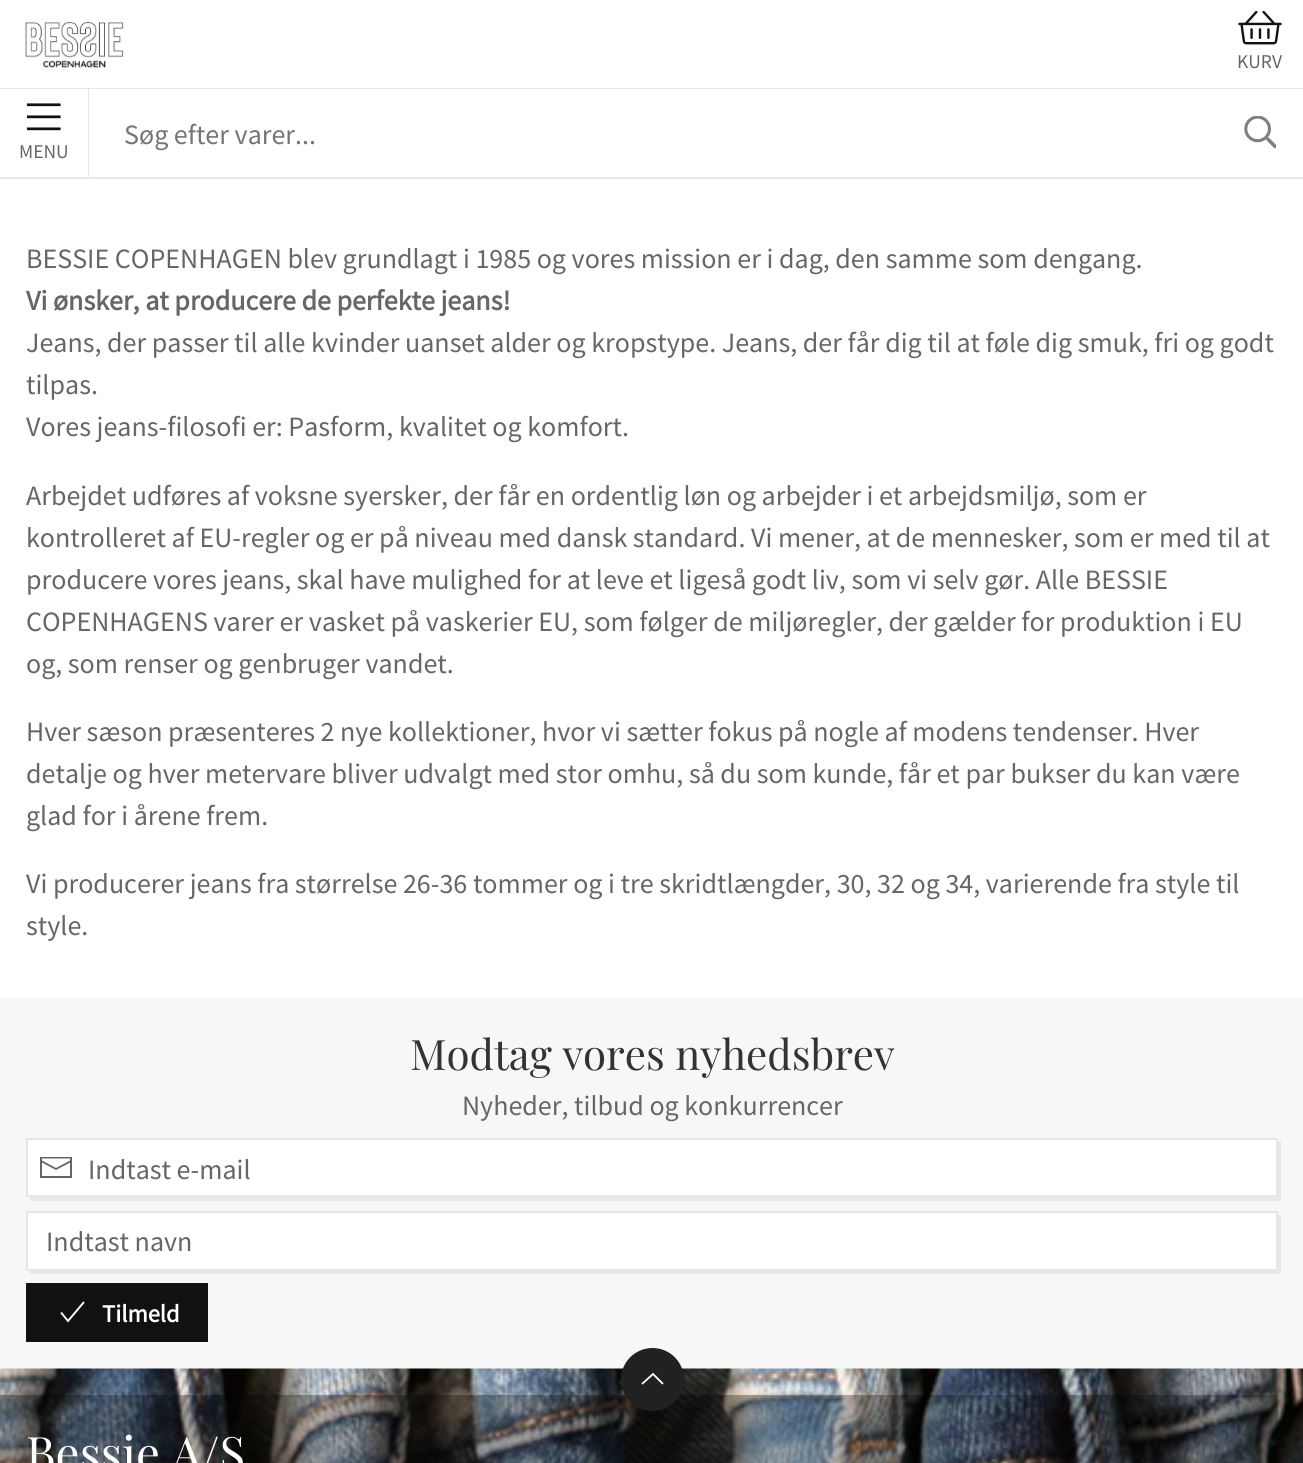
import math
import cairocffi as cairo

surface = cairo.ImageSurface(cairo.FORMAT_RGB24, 1303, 1463)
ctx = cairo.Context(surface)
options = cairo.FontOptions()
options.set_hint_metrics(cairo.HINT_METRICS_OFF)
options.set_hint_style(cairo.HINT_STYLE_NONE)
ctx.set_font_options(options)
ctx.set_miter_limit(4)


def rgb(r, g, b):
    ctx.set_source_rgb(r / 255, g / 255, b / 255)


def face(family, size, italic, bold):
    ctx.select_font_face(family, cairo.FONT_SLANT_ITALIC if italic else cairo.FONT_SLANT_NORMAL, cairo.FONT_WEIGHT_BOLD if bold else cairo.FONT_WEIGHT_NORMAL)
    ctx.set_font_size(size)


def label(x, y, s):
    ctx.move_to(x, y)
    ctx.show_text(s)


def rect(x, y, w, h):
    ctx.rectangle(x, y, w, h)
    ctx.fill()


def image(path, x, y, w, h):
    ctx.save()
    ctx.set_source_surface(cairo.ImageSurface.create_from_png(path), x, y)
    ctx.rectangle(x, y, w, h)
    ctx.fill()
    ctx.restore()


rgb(255, 255, 255)
ctx.paint()
rgb(230, 230, 230)
rect(0, 88, 1303, 1)
image('image0.png', 25, 22, 99, 46)
image('image1.png', 1238, 11, 44, 34)
face('Source Sans Pro', 19.5, 0, 0)
rgb(102, 102, 102)
label(1237, 68, 'KURV')
rgb(230, 230, 230)
rect(0, 177, 1303, 2)
rect(88, 89, 1, 88)
image('image2.png', 26, 103, 35, 28)
rgb(102, 102, 102)
label(19, 158, 'MENU')
face('Source Sans Pro', 28, 0, 0)
rgb(117, 117, 117)
label(124, 144, 'Søg efter varer...')
image('image3.png', 1244, 116, 32, 33)
rgb(102, 102, 102)
label(26, 268, 'BESSIE COPENHAGEN blev grundlagt i 1985 og vores mission er i dag, den samme som dengang.')
face('Source Sans Pro', 28, 0, 1)
label(26, 310, 'Vi ønsker, at producere de perfekte jeans!')
face('Source Sans Pro', 28, 0, 0)
label(26, 352, 'Jeans, der passer til alle kvinder uanset alder og kropstype. Jeans, der får dig til at føle dig smuk, fri og godt')
label(26, 394, 'tilpas.')
label(26, 436, 'Vores jeans-filosofi er: Pasform, kvalitet og komfort.')
label(26, 505, 'Arbejdet udføres af voksne syersker, der får en ordentlig løn og arbejder i et arbejdsmiljø, som er')
label(26, 547, 'kontrolleret af EU-regler og er på niveau med dansk standard. Vi mener, at de mennesker, som er med til at')
label(26, 589, 'producere vores jeans, skal have mulighed for at leve et ligeså godt liv, som vi selv gør. Alle BESSIE')
label(26, 631, 'COPENHAGENS varer er vasket på vaskerier EU, som følger de miljøregler, der gælder for produktion i EU')
label(26, 673, 'og, som renser og genbruger vandet.')
label(26, 741, 'Hver sæson præsenteres 2 nye kollektioner, hvor vi sætter fokus på nogle af modens tendenser. Hver')
label(26, 783, 'detalje og hver metervare bliver udvalgt med stor omhu, så du som kunde, får et par bukser du kan være')
label(26, 825, 'glad for i årene frem.')
label(26, 893, 'Vi producerer jeans fra størrelse 26-36 tommer og i tre skridtlængder, 30, 32 og 34, varierende fra style til')
label(26, 935, 'style.')
rgb(247, 247, 247)
rect(0, 998, 1303, 371)
face('Playfair Display', 42, 0, 0)
rgb(51, 51, 51)
label(410, 1070, 'Modtag vores nyhedsbrev')
face('Source Sans Pro', 28, 0, 0)
rgb(102, 102, 102)
label(462, 1115, 'Nyheder, tilbud og konkurrencer')
rgb(232, 232, 232)
ctx.new_path()
ctx.move_to(30, 1197)
ctx.line_to(30, 1201)
ctx.line_to(1281, 1201)
ctx.line_to(1281, 1141)
ctx.line_to(1278, 1141)
ctx.line_to(1278, 1197)
ctx.close_path()
ctx.fill()
rgb(255, 255, 255)
ctx.rectangle(27, 1139, 1250, 57)
ctx.fill_preserve()
rgb(230, 230, 230)
ctx.stroke()
ctx.new_path()
ctx.move_to(41, 1161)
ctx.line_to(56, 1169)
ctx.line_to(71, 1161)
rgb(102, 102, 102)
ctx.set_line_width(1.8)
ctx.stroke()
ctx.new_path()
ctx.move_to(40, 1157)
ctx.line_to(40, 1178)
ctx.line_to(72, 1178)
ctx.line_to(72, 1157)
ctx.close_path()
ctx.move_to(70, 1176)
ctx.line_to(42, 1176)
ctx.line_to(42, 1158.5)
ctx.line_to(70, 1158.5)
ctx.close_path()
ctx.fill()
label(88, 1179, 'Indtast e-mail')
rgb(232, 232, 232)
ctx.new_path()
ctx.move_to(30, 1270)
ctx.line_to(30, 1274)
ctx.line_to(1281, 1274)
ctx.line_to(1281, 1215)
ctx.line_to(1278, 1215)
ctx.line_to(1278, 1270)
ctx.close_path()
ctx.fill()
rgb(255, 255, 255)
ctx.rectangle(27, 1212, 1250, 58)
ctx.fill_preserve()
rgb(230, 230, 230)
ctx.set_line_width(2)
ctx.stroke()
rgb(102, 102, 102)
label(46, 1251, 'Indtast navn')
rgb(17, 17, 17)
rect(26, 1283, 182, 59)
ctx.new_path()
ctx.move_to(61, 1312.5)
ctx.line_to(68, 1321)
ctx.line_to(84, 1302)
rgb(255, 255, 255)
ctx.set_line_width(1.9)
ctx.stroke()
face('Source Sans Pro', 24.5, 0, 1)
label(102, 1322, 'Tilmeld')
image('image4.png', 0, 1368, 1303, 95)
ctx.set_source_rgba(0, 0, 0, 0.3)
rect(0, 1395, 1278, 68)
rgb(33, 33, 33)
ctx.arc(652.5, 1379.5, 31.5, 0, 2 * math.pi)
ctx.fill()
ctx.new_path()
ctx.move_to(642, 1384)
ctx.line_to(653, 1374)
ctx.line_to(663, 1384)
rgb(255, 255, 255)
ctx.set_line_width(1.8)
ctx.stroke()
face('Playfair Display', 47.5, 0, 0)
label(26, 1471, 'Bessie A/S')
surface.write_to_png('render.png')
